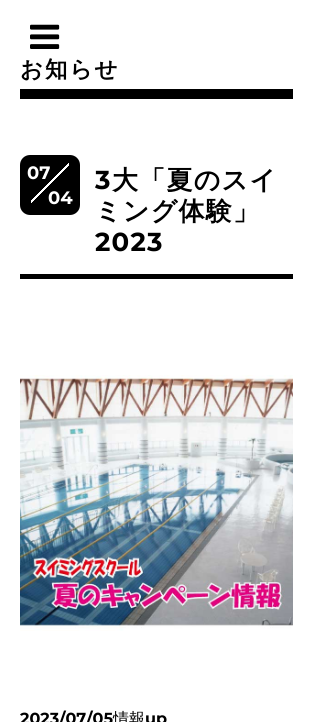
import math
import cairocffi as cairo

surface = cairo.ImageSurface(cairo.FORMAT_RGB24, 313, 722)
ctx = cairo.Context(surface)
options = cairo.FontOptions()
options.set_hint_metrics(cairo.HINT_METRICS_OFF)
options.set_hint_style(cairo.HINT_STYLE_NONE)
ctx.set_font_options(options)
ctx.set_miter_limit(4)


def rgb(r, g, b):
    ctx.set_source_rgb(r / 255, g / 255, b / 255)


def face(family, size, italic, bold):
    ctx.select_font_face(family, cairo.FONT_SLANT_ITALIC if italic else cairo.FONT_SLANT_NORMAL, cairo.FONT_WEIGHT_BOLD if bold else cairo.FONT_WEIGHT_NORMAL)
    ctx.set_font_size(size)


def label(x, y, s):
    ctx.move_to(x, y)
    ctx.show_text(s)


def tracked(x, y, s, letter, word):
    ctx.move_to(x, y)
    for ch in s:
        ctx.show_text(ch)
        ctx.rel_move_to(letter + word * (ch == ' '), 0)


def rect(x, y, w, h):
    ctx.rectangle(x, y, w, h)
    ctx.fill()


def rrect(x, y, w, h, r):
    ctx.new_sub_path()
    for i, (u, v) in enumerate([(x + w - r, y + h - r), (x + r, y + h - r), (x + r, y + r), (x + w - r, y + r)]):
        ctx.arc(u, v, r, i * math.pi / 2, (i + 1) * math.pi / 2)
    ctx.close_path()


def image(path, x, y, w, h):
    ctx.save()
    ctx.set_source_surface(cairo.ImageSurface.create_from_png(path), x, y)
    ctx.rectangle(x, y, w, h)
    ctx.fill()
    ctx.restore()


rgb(255, 255, 255)
ctx.paint()
image('image0.png', 30, 24, 30, 25)
rgb(0, 0, 0)
rect(20, 89, 273, 10)
face('WenQuanYi Zen Hei', 22.5, 0, 1)
tracked(20, 77, 'お知らせ', 2, 0)
rect(20, 274, 273, 5)
rrect(20, 155, 60, 60, 10)
ctx.fill()
gradient = cairo.LinearGradient(74, 209, 26, 161)
gradient.add_color_stop_rgba(0.51, 0, 0, 0, 1)
gradient.add_color_stop_rgba(0.51, 1, 1, 1, 1)
gradient.add_color_stop_rgba(0.54, 1, 1, 1, 1)
gradient.add_color_stop_rgba(0.54, 0, 0, 0, 1)
gradient.add_color_stop_rgba(1, 0, 0, 0, 1)
ctx.set_source(gradient)
rect(31, 163, 38, 40)
face('Montserrat Thin', 18, 0, 0)
rgb(255, 255, 255)
label(27, 179, '07')
label(48, 204, '04')
face('Montserrat Thin', 26, 0, 0)
rgb(0, 0, 0)
tracked(95, 189, '3', 1.25, 0)
face('WenQuanYi Zen Hei', 26, 0, 1)
tracked(112, 189, '大「夏のスイ', 1.25, 0)
tracked(95, 220, 'ミング体験」', 1.25, 0)
face('Montserrat Thin', 26, 0, 0)
tracked(95, 251, '2023', 1.25, 0)
image('image1.png', 20, 375, 273, 256)
face('Montserrat Thin', 16, 0, 0)
label(20, 724, '2023/07/05')
face('WenQuanYi Zen Hei Medium', 16, 0, 0)
label(113, 724, '情報')
face('Montserrat Thin', 16, 0, 0)
label(145, 724, 'up')
surface.write_to_png('render.png')
